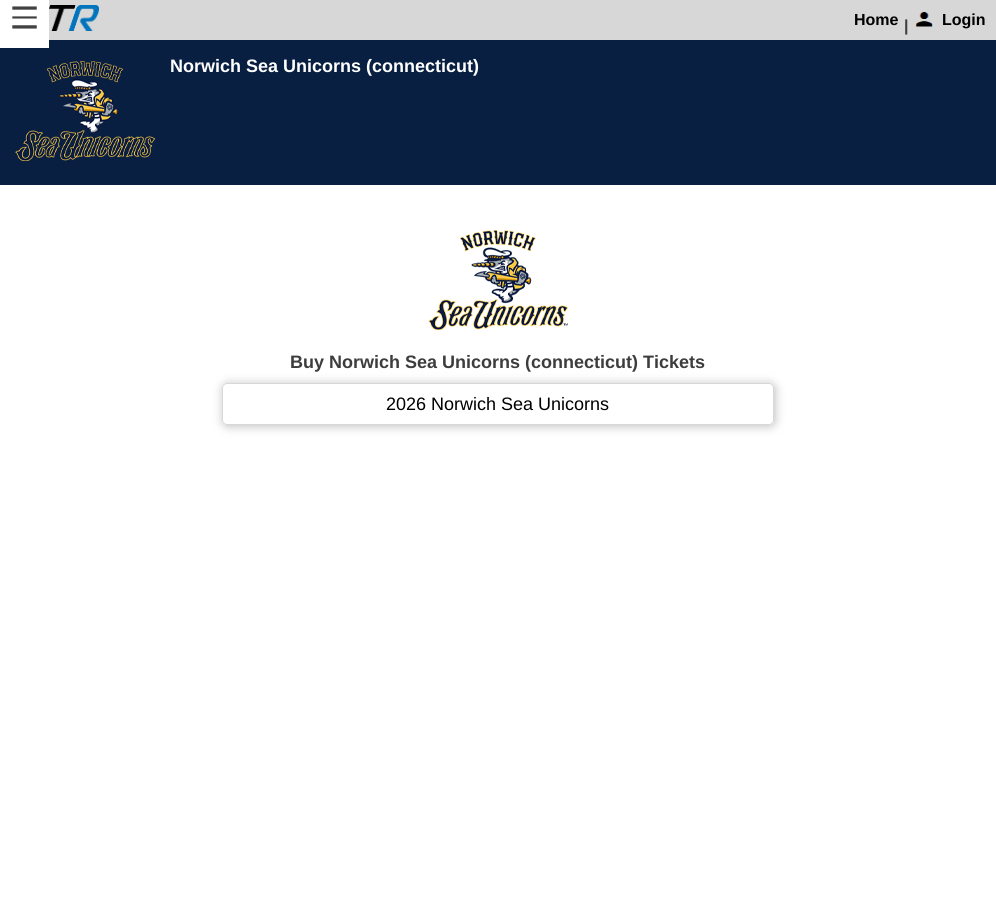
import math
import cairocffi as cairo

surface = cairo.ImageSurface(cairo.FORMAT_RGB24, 996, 901)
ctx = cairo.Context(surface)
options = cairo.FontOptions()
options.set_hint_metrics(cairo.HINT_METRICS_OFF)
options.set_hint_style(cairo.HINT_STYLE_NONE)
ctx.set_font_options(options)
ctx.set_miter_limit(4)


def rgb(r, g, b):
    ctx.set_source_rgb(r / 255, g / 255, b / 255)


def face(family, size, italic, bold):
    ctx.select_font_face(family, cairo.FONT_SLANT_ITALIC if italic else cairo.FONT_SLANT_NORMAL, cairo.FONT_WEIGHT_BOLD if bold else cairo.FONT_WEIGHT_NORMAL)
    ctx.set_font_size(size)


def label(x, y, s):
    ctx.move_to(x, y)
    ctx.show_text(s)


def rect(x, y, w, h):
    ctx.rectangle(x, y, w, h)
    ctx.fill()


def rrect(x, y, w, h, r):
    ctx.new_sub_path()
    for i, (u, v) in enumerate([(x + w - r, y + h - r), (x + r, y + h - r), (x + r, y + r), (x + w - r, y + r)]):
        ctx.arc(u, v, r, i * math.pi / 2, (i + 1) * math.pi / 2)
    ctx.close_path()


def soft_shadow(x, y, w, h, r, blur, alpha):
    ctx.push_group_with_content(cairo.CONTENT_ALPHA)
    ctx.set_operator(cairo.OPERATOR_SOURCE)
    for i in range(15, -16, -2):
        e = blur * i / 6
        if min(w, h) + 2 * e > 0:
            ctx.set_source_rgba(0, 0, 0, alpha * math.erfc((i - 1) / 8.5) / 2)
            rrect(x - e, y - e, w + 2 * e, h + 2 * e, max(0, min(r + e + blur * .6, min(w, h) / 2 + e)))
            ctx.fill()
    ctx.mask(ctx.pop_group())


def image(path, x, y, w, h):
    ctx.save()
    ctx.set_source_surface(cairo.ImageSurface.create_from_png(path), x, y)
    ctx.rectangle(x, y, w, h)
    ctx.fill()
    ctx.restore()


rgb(255, 255, 255)
ctx.paint()
rgb(215, 215, 215)
rect(49, 0, 947, 40)
rgb(8, 31, 65)
rect(0, 40, 996, 145)
rgb(255, 255, 255)
rect(0, 40, 49, 8)
image('image0.png', 12, 6, 25, 23)
image('image1.png', 49, 5, 50, 26)
face('Liberation Sans', 16, 0, 1)
rgb(0, 0, 0)
label(854, 25, 'Home')
rgb(61, 61, 61)
label(904, 31, '|')
image('image2.png', 915, 12, 18, 15)
rgb(0, 0, 0)
label(942, 25, 'Login')
image('image3.png', 15, 61, 140, 100)
face('Liberation Sans', 18, 0, 1)
rgb(255, 255, 255)
label(170, 72, 'Norwich Sea Unicorns (connecticut)')
image('image4.png', 428, 230, 140, 100)
rgb(61, 61, 61)
label(290, 368, 'Buy Norwich Sea Unicorns (connecticut) Tickets')
ctx.save()
ctx.set_fill_rule(cairo.FILL_RULE_EVEN_ODD)
ctx.new_path()
ctx.move_to(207, 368)
ctx.line_to(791, 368)
ctx.line_to(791, 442)
ctx.line_to(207, 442)
ctx.close_path()
ctx.move_to(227, 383)
ctx.line_to(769, 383)
ctx.curve_to(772, 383, 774, 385, 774, 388)
ctx.line_to(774, 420)
ctx.curve_to(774, 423, 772, 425, 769, 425)
ctx.line_to(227, 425)
ctx.curve_to(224, 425, 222, 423, 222, 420)
ctx.line_to(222, 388)
ctx.curve_to(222, 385, 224, 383, 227, 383)
ctx.close_path()
ctx.clip()
rgb(189, 189, 189)
soft_shadow(223, 384, 552, 42, 5, 5, 1)
ctx.restore()
rrect(222.5, 383.5, 551, 41, 4.5)
rgb(215, 215, 215)
ctx.set_line_width(1)
ctx.stroke()
face('Liberation Sans', 18, 0, 0)
rgb(0, 0, 0)
label(386, 410, '2026 Norwich Sea Unicorns')
surface.write_to_png('render.png')
